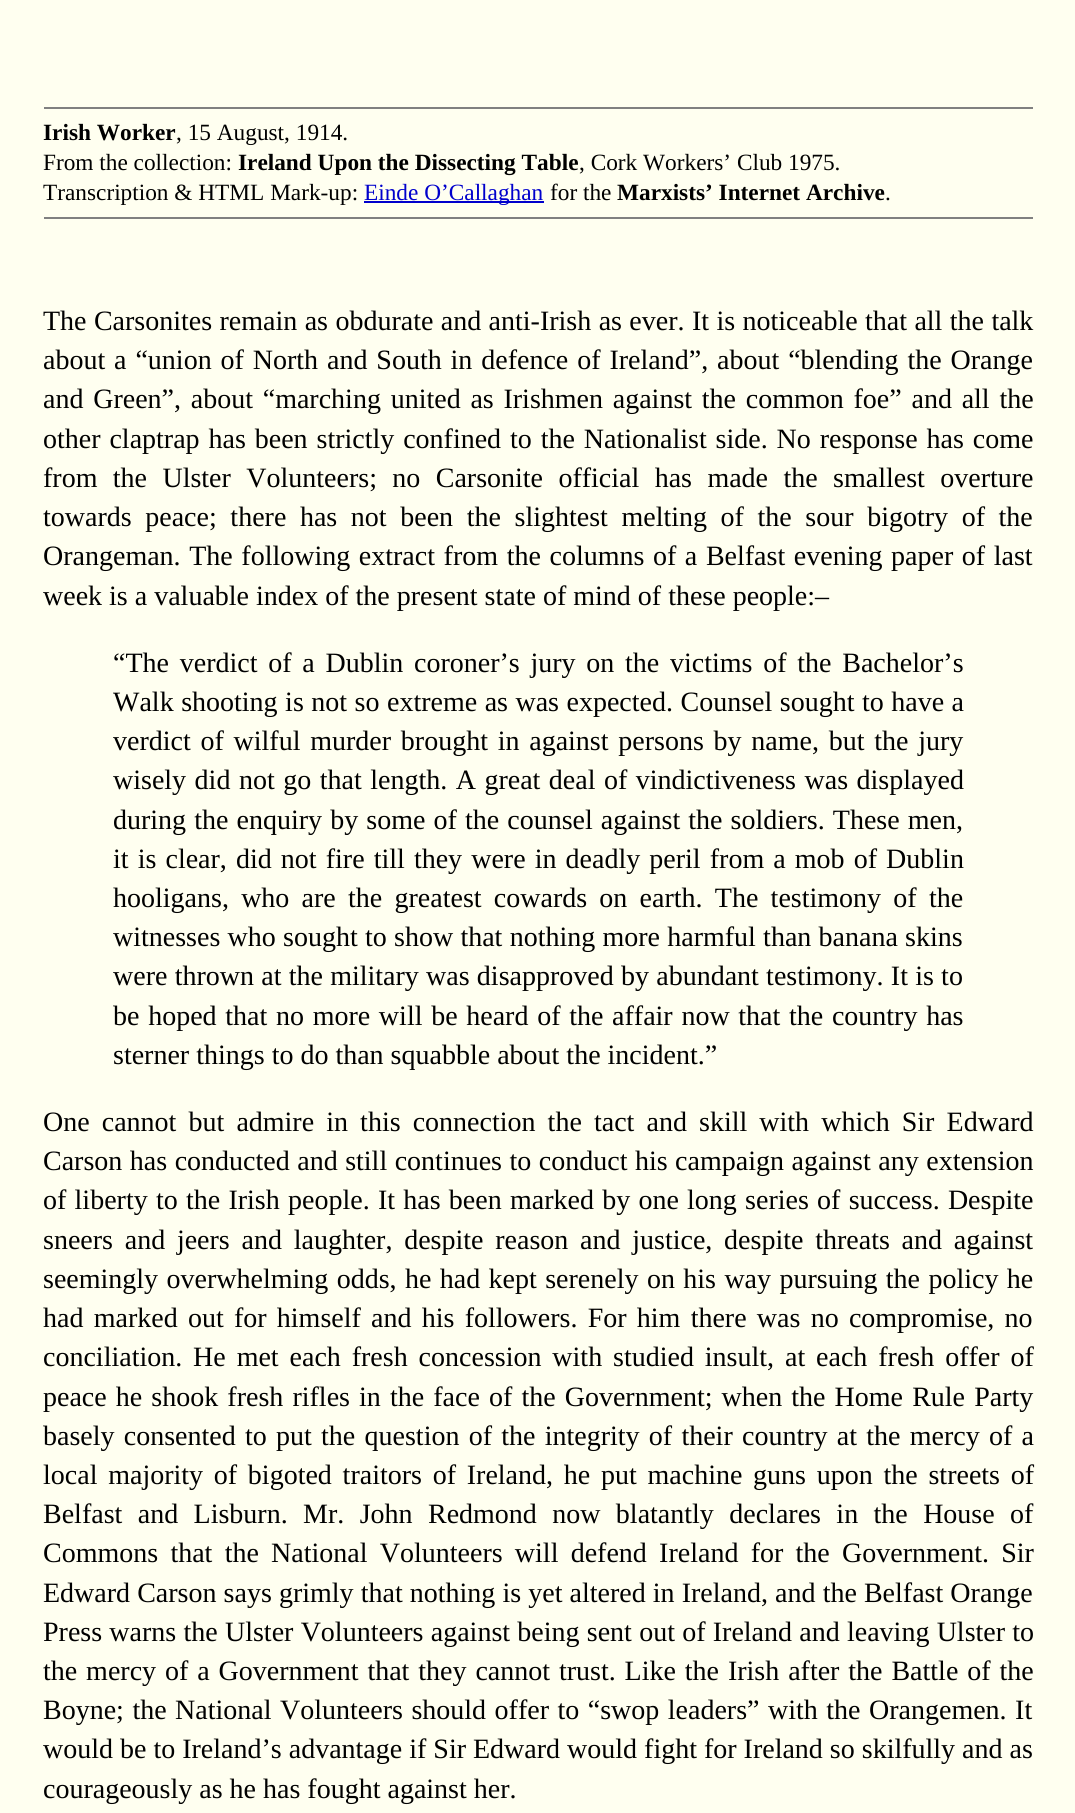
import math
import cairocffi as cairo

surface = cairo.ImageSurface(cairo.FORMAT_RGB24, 1075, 1813)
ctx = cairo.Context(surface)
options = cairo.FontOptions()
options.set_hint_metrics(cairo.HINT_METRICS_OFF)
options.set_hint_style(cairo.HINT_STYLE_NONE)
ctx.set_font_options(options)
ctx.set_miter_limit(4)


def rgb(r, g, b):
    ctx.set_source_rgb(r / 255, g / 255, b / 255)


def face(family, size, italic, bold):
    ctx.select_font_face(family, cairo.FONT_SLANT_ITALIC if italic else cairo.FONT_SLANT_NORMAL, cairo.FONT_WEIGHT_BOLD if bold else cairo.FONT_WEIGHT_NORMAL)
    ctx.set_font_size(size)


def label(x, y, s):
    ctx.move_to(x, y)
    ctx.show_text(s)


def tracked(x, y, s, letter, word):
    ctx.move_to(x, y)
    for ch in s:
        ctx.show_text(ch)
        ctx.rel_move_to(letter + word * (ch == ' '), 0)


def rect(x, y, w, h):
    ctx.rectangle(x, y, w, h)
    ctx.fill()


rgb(255, 255, 240)
ctx.paint()
rgb(128, 128, 128)
rect(44, 107, 989, 2)
face('Liberation Serif', 23.3, 0, 1)
rgb(0, 0, 0)
label(43, 140, 'Irish Worker')
face('Liberation Serif', 23.3, 0, 0)
label(176, 140, ', 15 August, 1914.')
label(43, 170, 'From the collection:')
face('Liberation Serif', 23.3, 0, 1)
label(238, 170, 'Ireland Upon the Dissecting Table')
face('Liberation Serif', 23.3, 0, 0)
label(579, 170, ', Cork Workers’ Club 1975.')
label(43, 200, 'Transcription & HTML Mark-up:')
rgb(0, 0, 204)
rect(364, 201, 180, 2)
label(364, 200, 'Einde O’Callaghan')
rgb(0, 0, 0)
label(550, 200, 'for the')
face('Liberation Serif', 23.3, 0, 1)
label(617, 200, 'Marxists’ Internet Archive')
face('Liberation Serif', 23.3, 0, 0)
label(885, 200, '.')
rgb(128, 128, 128)
rect(44, 217, 989, 2)
face('Liberation Serif', 28, 0, 0)
rgb(0, 0, 0)
tracked(43, 330, 'The Carsonites remain as obdurate and anti-Irish as ever. It is noticeable that all the talk', 0, 0.4)
tracked(43, 369, 'about a “union of North and South in defence of Ireland”, about “blending the Orange', 0, 1.9)
tracked(43, 408, 'and Green”, about “marching united as Irishmen against the common foe” and all the', 0, 2.75)
tracked(43, 448, 'other claptrap has been strictly confined to the Nationalist side. No response has come', 0, 1.9)
tracked(43, 487, 'from the Ulster Volunteers; no Carsonite official has made the smallest overture', 0, 8.4)
tracked(43, 526, 'towards peace; there has not been the slightest melting of the sour bigotry of the', 0, 6.6)
tracked(43, 565, 'Orangeman. The following extract from the columns of a Belfast evening paper of last', 0, 1.6)
label(43, 605, 'week is a valuable index of the present state of mind of these people:–')
tracked(113, 672, '“The verdict of a Dublin coroner’s jury on the victims of the Bachelor’s', 0, 3.75)
tracked(113, 711, 'Walk shooting is not so extreme as was expected. Counsel sought to have a', 0, 0.5)
tracked(113, 750, 'verdict of wilful murder brought in against persons by name, but the jury', 0, 2.75)
tracked(113, 789, 'wisely did not go that length. A great deal of vindictiveness was displayed', 0, 1.5)
tracked(113, 829, 'during the enquiry by some of the counsel against the soldiers. These men,', 0, 1.1)
tracked(113, 868, 'it is clear, did not fire till they were in deadly peril from a mob of Dublin', 0, 2.1)
tracked(113, 907, 'hooligans, who are the greatest cowards on earth. The testimony of the', 0, 5.25)
tracked(113, 946, 'witnesses who sought to show that nothing more harmful than banana skins', 0, 0.25)
tracked(113, 985, 'were thrown at the military was disapproved by abundant testimony. It is to', 0, 0.25)
tracked(113, 1025, 'be hoped that no more will be heard of the affair now that the country has', 0, 1.7)
label(113, 1064, 'sterner things to do than squabble about the incident.”')
tracked(43, 1131, 'One cannot but admire in this connection the tact and skill with which Sir Edward', 0, 5.1)
tracked(43, 1170, 'Carson has conducted and still continues to conduct his campaign against any extension', 0, 0.5)
tracked(43, 1209, 'of liberty to the Irish people. It has been marked by one long series of success. Despite', 0, 1.25)
tracked(43, 1249, 'sneers and jeers and laughter, despite reason and justice, despite threats and against', 0, 4.75)
tracked(43, 1288, 'seemingly overwhelming odds, he had kept serenely on his way pursuing the policy he', 0, 1.4)
tracked(43, 1327, 'had marked out for himself and his followers. For him there was no compromise, no', 0, 3.25)
tracked(43, 1366, 'conciliation. He met each fresh concession with studied insult, at each fresh offer of', 0, 3.9)
tracked(43, 1406, 'peace he shook fresh rifles in the face of the Government; when the Home Rule Party', 0, 2.1)
tracked(43, 1445, 'basely consented to put the question of the integrity of their country at the mercy of a', 0, 2.25)
tracked(43, 1484, 'local majority of bigoted traitors of Ireland, he put machine guns upon the streets of', 0, 3.75)
tracked(43, 1523, 'Belfast and Lisburn. Mr. John Redmond now blatantly declares in the House of', 0, 8.4)
tracked(43, 1562, 'Commons that the National Volunteers will defend Ireland for the Government. Sir', 0, 5.25)
tracked(43, 1602, 'Edward Carson says grimly that nothing is yet altered in Ireland, and the Belfast Orange', 0, 0.1)
tracked(43, 1641, 'Press warns the Ulster Volunteers against being sent out of Ireland and leaving Ulster to', 0, 0.25)
tracked(43, 1680, 'the mercy of a Government that they cannot trust. Like the Irish after the Battle of the', 0, 1.9)
tracked(43, 1719, 'Boyne; the National Volunteers should offer to “swop leaders” with the Orangemen. It', 0, 1.5)
label(43, 1758, 'would be to Ireland’s advantage if Sir Edward would fight for Ireland so skilfully and as')
label(43, 1798, 'courageously as he has fought against her.')
surface.write_to_png('render.png')
